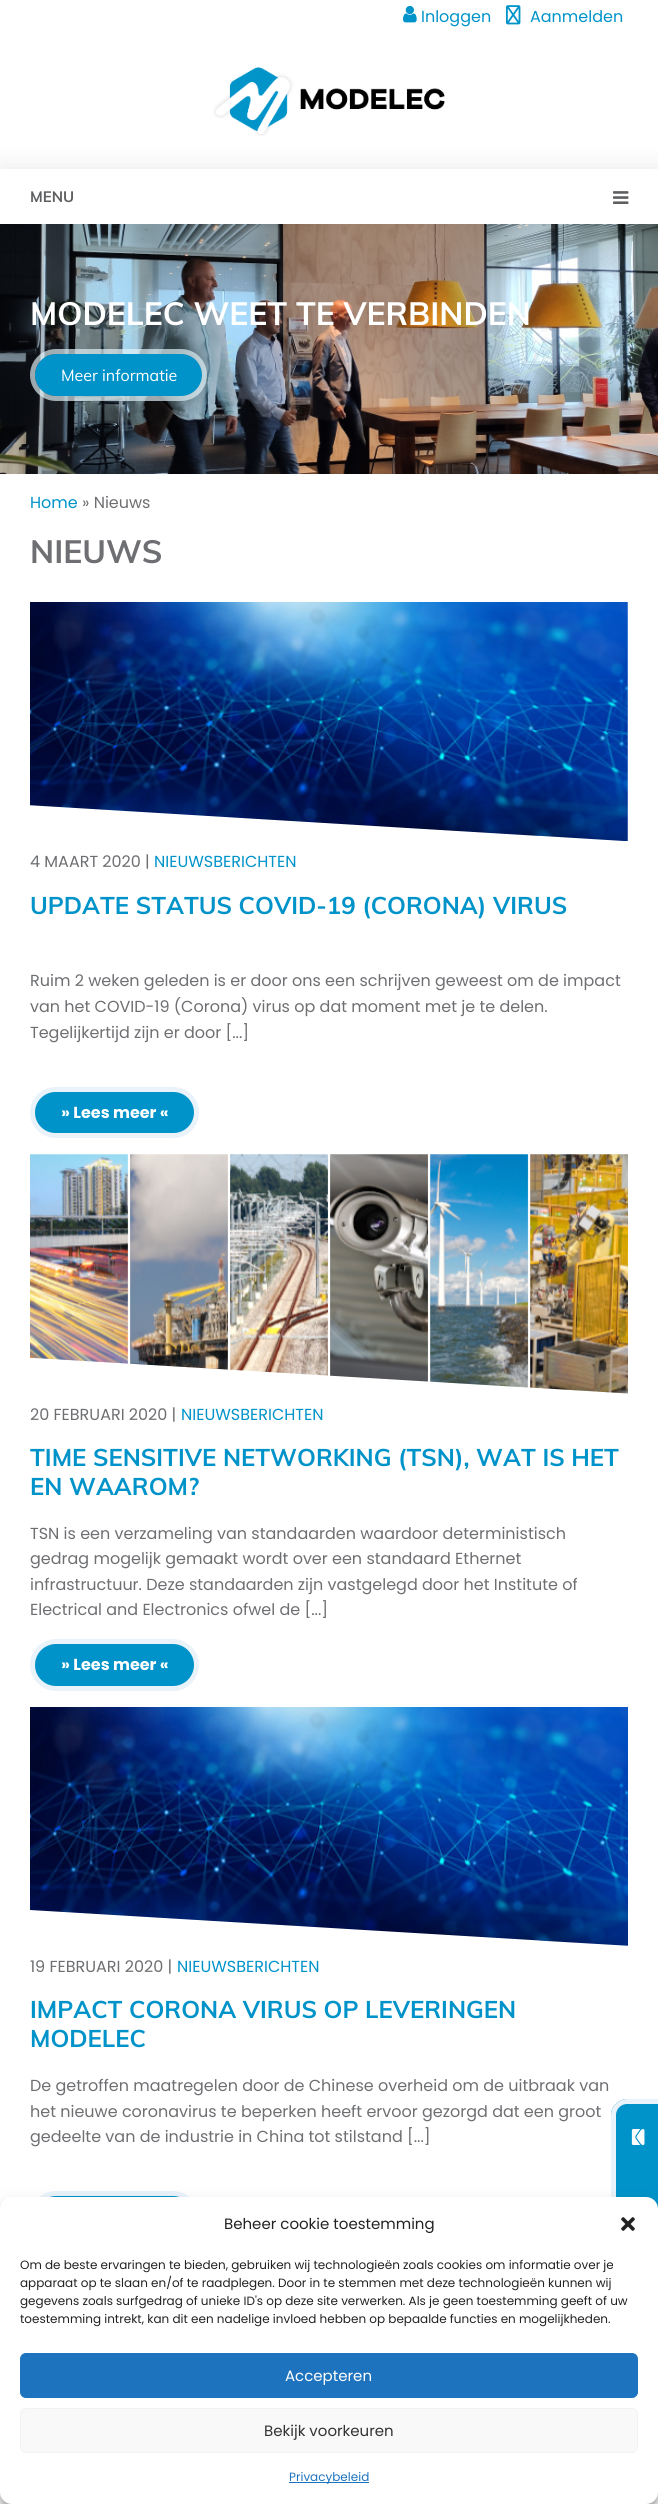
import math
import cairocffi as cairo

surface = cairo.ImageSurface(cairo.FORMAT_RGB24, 658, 2504)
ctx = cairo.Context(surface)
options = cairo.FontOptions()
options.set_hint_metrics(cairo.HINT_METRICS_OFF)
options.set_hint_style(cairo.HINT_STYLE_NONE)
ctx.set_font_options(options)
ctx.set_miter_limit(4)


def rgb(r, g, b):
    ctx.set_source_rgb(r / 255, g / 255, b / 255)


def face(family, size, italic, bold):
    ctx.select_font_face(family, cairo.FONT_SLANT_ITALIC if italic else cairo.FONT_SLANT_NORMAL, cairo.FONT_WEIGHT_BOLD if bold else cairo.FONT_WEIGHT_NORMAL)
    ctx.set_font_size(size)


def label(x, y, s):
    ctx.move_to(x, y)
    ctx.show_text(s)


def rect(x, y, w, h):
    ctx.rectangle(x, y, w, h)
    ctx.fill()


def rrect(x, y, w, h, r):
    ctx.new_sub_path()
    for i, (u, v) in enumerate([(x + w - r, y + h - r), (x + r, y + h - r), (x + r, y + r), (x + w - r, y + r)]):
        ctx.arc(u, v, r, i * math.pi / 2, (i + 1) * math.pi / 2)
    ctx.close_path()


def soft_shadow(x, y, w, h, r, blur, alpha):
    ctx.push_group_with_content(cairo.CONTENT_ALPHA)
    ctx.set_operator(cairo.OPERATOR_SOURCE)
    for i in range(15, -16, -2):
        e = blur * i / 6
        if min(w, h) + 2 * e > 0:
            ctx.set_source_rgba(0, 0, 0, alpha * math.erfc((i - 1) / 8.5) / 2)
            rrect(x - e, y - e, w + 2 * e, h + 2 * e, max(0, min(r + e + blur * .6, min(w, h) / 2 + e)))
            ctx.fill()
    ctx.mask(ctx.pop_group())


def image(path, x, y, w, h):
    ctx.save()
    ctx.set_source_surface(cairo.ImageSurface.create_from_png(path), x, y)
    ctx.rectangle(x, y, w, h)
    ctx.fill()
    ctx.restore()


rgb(255, 255, 255)
ctx.paint()
image('image0.png', 403, 5, 14, 18)
face('Poppins', 16, 0, 0)
rgb(0, 147, 201)
label(421, 22, 'Inloggen')
image('image1.png', 506, 5, 15, 20)
label(530, 22, 'Aanmelden')
rgb(0, 0, 0)
soft_shadow(0, 169, 658, 55, 0, 12.5, 0.1)
image('image2.png', 213, 67, 232, 69)
rgb(255, 255, 255)
rect(0, 169, 658, 55)
face('Muli', 15, 0, 1)
rgb(94, 95, 97)
label(30, 202, 'MENU')
image('image3.png', 613, 191, 16, 13)
image('image4.png', 0, 224, 658, 250)
face('Muli', 32, 0, 1)
rgb(255, 255, 255)
label(30, 325, 'MODELEC WEET TE VERBINDEN')
rgb(0, 147, 201)
rrect(35, 354, 167, 42, 21)
ctx.fill()
rrect(32.5, 351.5, 172, 47, 23.5)
ctx.set_source_rgba(0.89, 0.957, 0.984, 0.67)
ctx.set_line_width(5)
ctx.stroke()
face('Muli', 16, 0, 0)
rgb(255, 255, 255)
label(61, 381, 'Meer informatie')
face('Poppins', 16, 0, 0)
rgb(0, 147, 201)
label(30, 508, 'Home')
rgb(110, 111, 114)
label(82, 508, '» Nieuws')
face('Muli', 32, 0, 1)
label(30, 563, 'NIEUWS')
image('image5.png', 30, 602, 598, 239)
face('Poppins', 16, 0, 0)
label(30, 867, '4 MAART 2020 |')
rgb(0, 147, 201)
label(154, 867, 'NIEUWSBERICHTEN')
face('Muli', 24, 0, 1)
label(30, 914, 'UPDATE STATUS COVID-19 (CORONA) VIRUS')
face('Poppins', 16, 0, 0)
rgb(110, 111, 114)
label(30, 986, 'Ruim 2 weken geleden is er door ons een schrijven geweest om de impact')
label(30, 1012, 'van het COVID-19 (Corona) virus op dat moment met je te delen.')
label(30, 1038, 'Tegelijkertijd zijn er door [...]')
rgb(0, 147, 201)
rrect(32.5, 1089.5, 164, 46, 23)
ctx.fill_preserve()
rgb(235, 243, 250)
ctx.stroke()
face('Poppins', 16, 0, 1)
rgb(255, 255, 255)
label(61, 1118, '» Lees meer «')
image('image6.png', 30, 1154, 598, 240)
face('Poppins', 16, 0, 0)
rgb(110, 111, 114)
label(30, 1420, '20 FEBRUARI 2020 |')
rgb(0, 147, 201)
label(181, 1420, 'NIEUWSBERICHTEN')
face('Muli', 24, 0, 1)
label(30, 1466, 'TIME SENSITIVE NETWORKING (TSN), WAT IS HET')
label(30, 1495, 'EN WAAROM?')
face('Poppins', 16, 0, 0)
rgb(110, 111, 114)
label(30, 1539, 'TSN is een verzameling van standaarden waardoor deterministisch')
label(30, 1564, 'gedrag mogelijk gemaakt wordt over een standaard Ethernet')
label(30, 1590, 'infrastructuur. Deze standaarden zijn vastgelegd door het Institute of')
label(30, 1615, 'Electrical and Electronics ofwel de [...]')
rgb(0, 147, 201)
rrect(32.5, 1641.5, 164, 47, 23.5)
ctx.fill_preserve()
rgb(235, 243, 250)
ctx.stroke()
face('Poppins', 16, 0, 1)
rgb(255, 255, 255)
label(61, 1670, '» Lees meer «')
image('image7.png', 30, 1707, 598, 239)
face('Poppins', 16, 0, 0)
rgb(110, 111, 114)
label(30, 1972, '19 FEBRUARI 2020 |')
rgb(0, 147, 201)
label(177, 1972, 'NIEUWSBERICHTEN')
face('Muli', 24, 0, 1)
label(30, 2018, 'IMPACT CORONA VIRUS OP LEVERINGEN')
label(30, 2047, 'MODELEC')
face('Poppins', 16, 0, 0)
rgb(110, 111, 114)
label(30, 2091, 'De getroffen maatregelen door de Chinese overheid om de uitbraak van')
label(30, 2117, 'het nieuwe coronavirus te beperken heeft ervoor gezorgd dat een groot')
label(30, 2142, 'gedeelte van de industrie in China tot stilstand [...]')
rgb(0, 147, 201)
rrect(32.5, 2193.5, 164, 47, 23.5)
ctx.fill_preserve()
rgb(235, 243, 250)
ctx.stroke()
rgb(0, 147, 201)
ctx.new_path()
ctx.move_to(658, 2099)
ctx.line_to(658, 2282)
ctx.line_to(627, 2282)
ctx.curve_to(619, 2282, 611, 2275, 611, 2266)
ctx.line_to(611, 2115)
ctx.curve_to(611, 2106, 619, 2099, 627, 2099)
ctx.close_path()
ctx.fill()
rgb(235, 243, 250)
ctx.set_fill_rule(cairo.FILL_RULE_EVEN_ODD)
ctx.new_path()
ctx.move_to(658, 2099)
ctx.line_to(658, 2282)
ctx.line_to(627, 2282)
ctx.curve_to(619, 2282, 611, 2275, 611, 2266)
ctx.line_to(611, 2115)
ctx.curve_to(611, 2106, 619, 2099, 627, 2099)
ctx.close_path()
ctx.move_to(658, 2104)
ctx.line_to(658, 2277)
ctx.line_to(627, 2277)
ctx.curve_to(621, 2277, 616, 2272, 616, 2266)
ctx.line_to(616, 2115)
ctx.curve_to(616, 2109, 621, 2104, 627, 2104)
ctx.close_path()
ctx.fill()
image('image8.png', 631, 2129, 14, 16)
rgb(0, 0, 0)
soft_shadow(0, 2203, 658, 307, 12, 3, 0.23)
soft_shadow(0, 2207, 658, 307, 12, 10, 0.19)
rgb(255, 255, 255)
rrect(0, 2197, 658, 307, 12)
ctx.fill()
face('Poppins', 15, 0, 0)
rgb(34, 34, 34)
label(224, 2229, 'Beheer cookie toestemming')
image('image9.png', 621, 2217, 14, 14)
face('Poppins', 12, 0, 0)
label(20, 2269, 'Om de beste ervaringen te bieden, gebruiken wij technologieën zoals cookies om informatie over je')
label(20, 2287, 'apparaat op te slaan en/of te raadplegen. Door in te stemmen met deze technologieën kunnen wij')
label(20, 2305, 'gegevens zoals surfgedrag of unieke ID\'s op deze site verwerken. Als je geen toestemming geeft of uw')
label(20, 2323, 'toestemming intrekt, kan dit een nadelige invloed hebben op bepaalde functies en mogelijkheden.')
rgb(30, 115, 190)
rrect(20.5, 2353.5, 617, 44, 5.5)
ctx.fill_preserve()
ctx.set_line_width(1)
ctx.stroke()
face('Poppins', 15, 0, 0)
rgb(255, 255, 255)
label(285, 2381, 'Accepteren')
rgb(249, 249, 249)
rrect(20.5, 2408.5, 617, 44, 5.5)
ctx.fill_preserve()
rgb(242, 242, 242)
ctx.stroke()
rgb(51, 51, 51)
label(264, 2436, 'Bekijk voorkeuren')
rgb(30, 115, 190)
rect(289, 2482, 80, 1)
face('Poppins', 12, 0, 0)
label(289, 2481, 'Privacybeleid')
surface.write_to_png('render.png')
